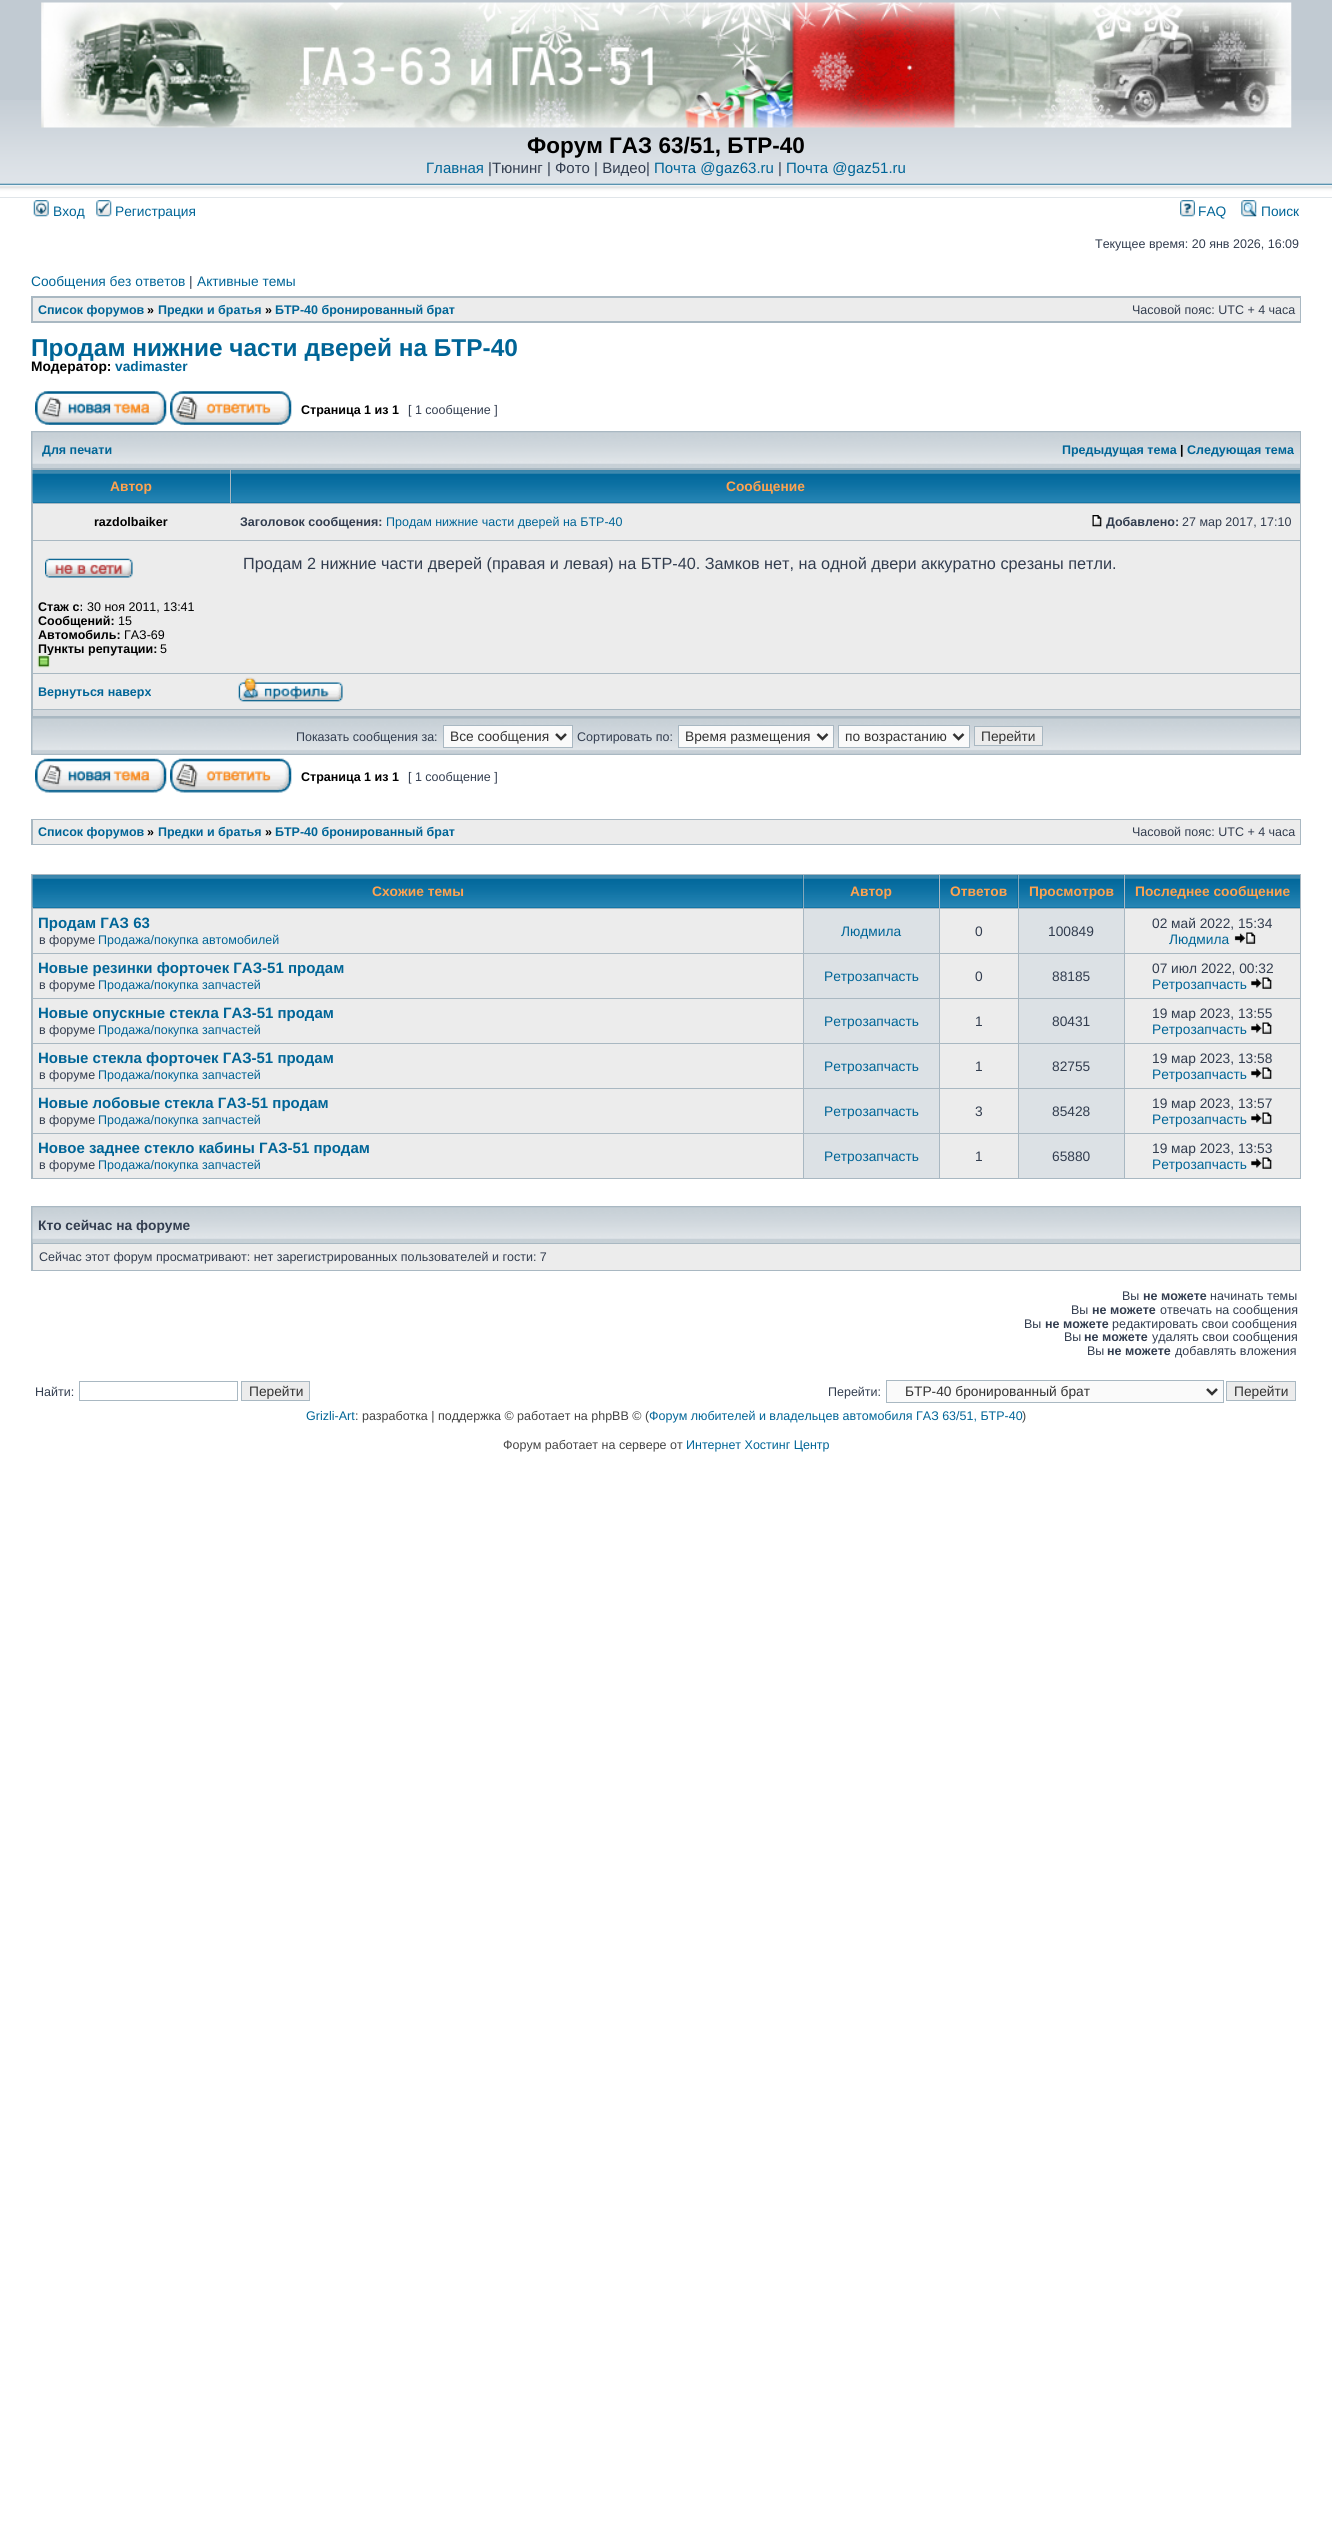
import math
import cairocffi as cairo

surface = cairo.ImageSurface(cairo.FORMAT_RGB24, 1332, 2543)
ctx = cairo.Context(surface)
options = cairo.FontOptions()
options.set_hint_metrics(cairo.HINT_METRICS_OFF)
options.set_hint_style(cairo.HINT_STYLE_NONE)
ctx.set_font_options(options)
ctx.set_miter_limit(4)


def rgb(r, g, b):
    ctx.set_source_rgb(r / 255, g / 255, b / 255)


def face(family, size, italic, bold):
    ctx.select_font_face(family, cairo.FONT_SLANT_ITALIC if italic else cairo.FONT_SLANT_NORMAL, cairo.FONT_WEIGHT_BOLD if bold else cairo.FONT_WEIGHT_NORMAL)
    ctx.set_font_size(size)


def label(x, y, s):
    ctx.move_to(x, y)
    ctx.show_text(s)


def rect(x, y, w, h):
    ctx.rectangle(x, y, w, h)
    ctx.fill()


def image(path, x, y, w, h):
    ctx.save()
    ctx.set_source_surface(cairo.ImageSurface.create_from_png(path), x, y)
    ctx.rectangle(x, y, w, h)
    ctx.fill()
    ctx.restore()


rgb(255, 255, 255)
ctx.paint()
rgb(193, 202, 210)
rect(0, 0, 1332, 198)
image('image0.png', 0, 100, 1332, 98)
image('image1.png', 41, 2, 1251, 126)
face('Liberation Sans', 22.5, 0, 1)
rgb(0, 0, 0)
label(527, 153, 'Форум ГАЗ 63/51, БТР-40')
face('Liberation Sans', 15, 0, 0)
rgb(0, 101, 151)
label(426, 173, 'Главная')
rgb(50, 61, 79)
label(488, 173, '|Тюнинг | Фото | Видео|')
rgb(0, 101, 151)
label(654, 173, 'Почта @gaz63.ru')
rgb(50, 61, 79)
label(778, 173, '|')
rgb(0, 101, 151)
label(786, 173, 'Почта @gaz51.ru')
image('image2.png', 33, 200, 16, 17)
face('Liberation Sans', 13.75, 0, 0)
label(53, 216, 'Вход')
image('image3.png', 96, 200, 16, 17)
label(115, 216, 'Регистрация')
image('image4.png', 1180, 200, 15, 17)
label(1198, 216, 'FAQ')
image('image5.png', 1241, 200, 16, 17)
label(1261, 216, 'Поиск')
face('Liberation Sans', 12.5, 0, 0)
rgb(50, 61, 79)
label(1095, 248, 'Текущее время: 20 янв 2026, 16:09')
face('Liberation Sans', 13.75, 0, 0)
rgb(0, 101, 151)
label(31, 286, 'Сообщения без ответов')
rgb(50, 61, 79)
label(189, 286, '|')
rgb(0, 101, 151)
label(197, 286, 'Активные темы')
rgb(169, 184, 194)
rect(31, 296, 1270, 27)
rgb(236, 236, 236)
rect(33, 298, 1267, 23)
face('Liberation Sans', 12.5, 0, 1)
rgb(0, 101, 151)
label(38, 314, 'Список форумов')
rgb(0, 0, 0)
label(147, 314, '»')
rgb(0, 101, 151)
label(158, 314, 'Предки и братья')
rgb(0, 0, 0)
label(265, 314, '»')
rgb(0, 101, 151)
label(275, 314, 'БТР-40 бронированный брат')
face('Liberation Sans', 12.5, 0, 0)
rgb(50, 61, 79)
label(1132, 314, 'Часовой пояс: UTC + 4 часа')
face('Liberation Sans', 24.4, 0, 1)
rgb(0, 101, 151)
label(31, 356, 'Продам нижние части дверей на БТР-40')
face('Liberation Sans', 13.75, 0, 1)
rgb(0, 0, 0)
label(31, 371, 'Модератор:')
rgb(0, 101, 151)
label(115, 371, 'vadimaster')
image('image6.png', 35, 391, 132, 34)
image('image7.png', 170, 391, 122, 34)
face('Liberation Sans', 12.5, 0, 1)
rgb(0, 0, 0)
label(301, 414, 'Страница 1 из 1')
face('Liberation Sans', 12.5, 0, 0)
rgb(50, 61, 79)
label(408, 414, '[ 1 сообщение ]')
rgb(169, 184, 194)
rect(31, 431, 1270, 324)
rgb(199, 208, 215)
rect(33, 467, 1267, 1)
image('image8.png', 32, 432, 1268, 36)
face('Liberation Sans', 12.5, 0, 1)
rgb(0, 101, 151)
label(42, 454, 'Для печати')
label(1062, 454, 'Предыдущая тема')
rgb(0, 0, 0)
label(1180, 454, '|')
rgb(0, 101, 151)
label(1187, 454, 'Следующая тема')
rgb(0, 102, 153)
rect(33, 502, 197, 1)
image('image9.png', 32, 470, 198, 33)
face('Liberation Sans', 13.75, 0, 1)
rgb(255, 163, 79)
label(110, 491, 'Автор')
rgb(0, 102, 153)
rect(231, 470, 1069, 33)
image('image10.png', 231, 470, 1069, 33)
rgb(255, 163, 79)
label(726, 491, 'Сообщение')
rgb(236, 236, 236)
rect(33, 504, 1267, 36)
face('Liberation Sans', 12.5, 0, 1)
rgb(0, 0, 0)
label(94, 526, 'razdolbaiker')
rgb(50, 61, 79)
label(240, 526, 'Заголовок сообщения:')
face('Liberation Sans', 12.5, 0, 0)
rgb(0, 101, 151)
label(386, 526, 'Продам нижние части дверей на БТР-40')
image('image11.png', 1092, 515, 10, 12)
face('Liberation Sans', 12.5, 0, 1)
rgb(50, 61, 79)
label(1106, 526, 'Добавлено:')
face('Liberation Sans', 12.5, 0, 0)
label(1182, 526, '27 мар 2017, 17:10')
rgb(236, 236, 236)
rect(33, 541, 1267, 132)
face('Liberation Sans', 16.25, 0, 0)
rgb(50, 61, 79)
label(243, 569, 'Продам 2 нижние части дверей (правая и левая) на БТР-40. Замков нет, на одной двери аккуратно срезаны петли.')
image('image12.png', 45, 558, 88, 20)
face('Liberation Sans', 12.5, 0, 1)
rgb(0, 0, 0)
label(38, 611, 'Стаж с:')
face('Liberation Sans', 12.5, 0, 0)
label(87, 611, '30 ноя 2011, 13:41')
face('Liberation Sans', 12.5, 0, 1)
label(38, 625, 'Сообщений:')
face('Liberation Sans', 12.5, 0, 0)
label(118, 625, '15')
face('Liberation Sans', 12.5, 0, 1)
label(38, 639, 'Автомобиль:')
face('Liberation Sans', 12.5, 0, 0)
label(124, 639, 'ГАЗ-69')
face('Liberation Sans', 12.5, 0, 1)
label(38, 653, 'Пункты репутации:')
face('Liberation Sans', 12.5, 0, 0)
label(160, 653, '5')
image('image13.png', 37, 655, 13, 13)
rgb(236, 236, 236)
rect(33, 674, 1267, 35)
face('Liberation Sans', 12.5, 0, 1)
rgb(0, 101, 151)
label(38, 696, 'Вернуться наверх')
image('image14.png', 238, 677, 105, 25)
rgb(209, 215, 220)
rect(33, 710, 1267, 6)
image('image15.png', 32, 718, 1268, 36)
face('Liberation Sans', 12.5, 0, 0)
rgb(50, 61, 79)
label(296, 741, 'Показать сообщения за:')
rgb(250, 250, 250)
ctx.rectangle(443.5, 725.5, 129, 22)
ctx.fill_preserve()
rgb(169, 184, 194)
ctx.set_line_width(1)
ctx.stroke()
ctx.new_path()
ctx.move_to(556, 734)
ctx.line_to(561, 739)
ctx.line_to(566, 734)
rgb(51, 51, 51)
ctx.set_line_width(2.5)
ctx.stroke()
face('Liberation Sans', 13.75, 0, 0)
label(450, 741, 'Все сообщения')
face('Liberation Sans', 12.5, 0, 0)
rgb(50, 61, 79)
label(577, 741, 'Сортировать по:')
rgb(250, 250, 250)
ctx.rectangle(678.5, 725.5, 155, 22)
ctx.fill_preserve()
rgb(169, 184, 194)
ctx.set_line_width(1)
ctx.stroke()
ctx.new_path()
ctx.move_to(817.5, 734)
ctx.line_to(822.5, 739)
ctx.line_to(827.5, 734)
rgb(51, 51, 51)
ctx.set_line_width(2.5)
ctx.stroke()
face('Liberation Sans', 13.75, 0, 0)
label(685, 741, 'Время размещения')
rgb(250, 250, 250)
ctx.rectangle(838.5, 725.5, 131, 22)
ctx.fill_preserve()
rgb(169, 184, 194)
ctx.set_line_width(1)
ctx.stroke()
ctx.new_path()
ctx.move_to(953.5, 734)
ctx.line_to(958.5, 739)
ctx.line_to(963.5, 734)
rgb(51, 51, 51)
ctx.set_line_width(2.5)
ctx.stroke()
label(845, 741, 'по возрастанию')
rgb(236, 236, 236)
ctx.rectangle(974.5, 726.5, 68, 19)
ctx.fill_preserve()
rgb(169, 184, 194)
ctx.set_line_width(1)
ctx.stroke()
rgb(51, 51, 51)
label(981, 741, 'Перейти')
image('image16.png', 35, 758, 132, 35)
image('image17.png', 170, 758, 122, 35)
face('Liberation Sans', 12.5, 0, 1)
rgb(0, 0, 0)
label(301, 781, 'Страница 1 из 1')
face('Liberation Sans', 12.5, 0, 0)
rgb(50, 61, 79)
label(408, 781, '[ 1 сообщение ]')
rgb(169, 184, 194)
rect(31, 819, 1270, 26)
rgb(236, 236, 236)
rect(33, 820, 1267, 24)
face('Liberation Sans', 12.5, 0, 1)
rgb(0, 101, 151)
label(38, 836, 'Список форумов')
rgb(0, 0, 0)
label(147, 836, '»')
rgb(0, 101, 151)
label(158, 836, 'Предки и братья')
rgb(0, 0, 0)
label(265, 836, '»')
rgb(0, 101, 151)
label(275, 836, 'БТР-40 бронированный брат')
face('Liberation Sans', 12.5, 0, 0)
rgb(50, 61, 79)
label(1132, 836, 'Часовой пояс: UTC + 4 часа')
rgb(169, 184, 194)
rect(31, 874, 1270, 305)
rgb(0, 102, 153)
rect(33, 875, 770, 33)
image('image18.png', 32, 875, 771, 33)
face('Liberation Sans', 13.75, 0, 1)
rgb(255, 163, 79)
label(372, 896, 'Схожие темы')
rgb(0, 102, 153)
rect(804, 875, 135, 33)
image('image19.png', 803, 875, 136, 33)
rgb(255, 163, 79)
label(850, 896, 'Автор')
rgb(0, 102, 153)
rect(940, 875, 78, 33)
image('image20.png', 940, 875, 78, 33)
rgb(255, 163, 79)
label(950, 896, 'Ответов')
rgb(0, 102, 153)
rect(1019, 875, 105, 33)
image('image21.png', 1018, 875, 106, 33)
rgb(255, 163, 79)
label(1029, 896, 'Просмотров')
rgb(0, 102, 153)
rect(1125, 907, 175, 1)
image('image22.png', 1125, 875, 175, 33)
rgb(255, 163, 79)
label(1135, 896, 'Последнее сообщение')
rgb(236, 236, 236)
rect(33, 909, 770, 44)
face('Liberation Sans', 15, 0, 1)
rgb(0, 101, 151)
label(38, 928, 'Продам ГАЗ 63')
face('Liberation Sans', 12.5, 0, 0)
rgb(50, 61, 79)
label(39, 944, 'в форуме')
rgb(0, 101, 151)
label(98, 944, 'Продажа/покупка автомобилей')
rgb(220, 225, 229)
rect(804, 909, 135, 44)
face('Liberation Sans', 13.75, 0, 0)
rgb(0, 101, 151)
label(841, 936, 'Людмила')
rgb(236, 236, 236)
rect(940, 909, 78, 44)
rgb(50, 61, 79)
label(975, 936, '0')
rgb(220, 225, 229)
rect(1019, 909, 105, 44)
rgb(50, 61, 79)
label(1048, 936, '100849')
rgb(236, 236, 236)
rect(1125, 909, 175, 44)
rgb(50, 61, 79)
label(1152, 928, '02 май 2022, 15:34')
rgb(0, 101, 151)
label(1169, 944, 'Людмила')
image('image23.png', 1234, 932, 22, 12)
rgb(236, 236, 236)
rect(33, 954, 770, 44)
face('Liberation Sans', 15, 0, 1)
rgb(0, 101, 151)
label(38, 973, 'Новые резинки форточек ГАЗ-51 продам')
face('Liberation Sans', 12.5, 0, 0)
rgb(50, 61, 79)
label(39, 989, 'в форуме')
rgb(0, 101, 151)
label(98, 989, 'Продажа/покупка запчастей')
rgb(220, 225, 229)
rect(804, 954, 135, 44)
face('Liberation Sans', 13.75, 0, 0)
rgb(0, 101, 151)
label(824, 981, 'Ретрозапчасть')
rgb(236, 236, 236)
rect(940, 954, 78, 44)
rgb(50, 61, 79)
label(975, 981, '0')
rgb(220, 225, 229)
rect(1019, 954, 105, 44)
rgb(50, 61, 79)
label(1052, 981, '88185')
rgb(236, 236, 236)
rect(1125, 954, 175, 44)
rgb(50, 61, 79)
label(1152, 973, '07 июл 2022, 00:32')
rgb(0, 101, 151)
label(1152, 989, 'Ретрозапчасть')
image('image24.png', 1251, 977, 21, 12)
rgb(236, 236, 236)
rect(33, 999, 770, 44)
face('Liberation Sans', 15, 0, 1)
rgb(0, 101, 151)
label(38, 1018, 'Новые опускные стекла ГАЗ-51 продам')
face('Liberation Sans', 12.5, 0, 0)
rgb(50, 61, 79)
label(39, 1034, 'в форуме')
rgb(0, 101, 151)
label(98, 1034, 'Продажа/покупка запчастей')
rgb(220, 225, 229)
rect(804, 999, 135, 44)
face('Liberation Sans', 13.75, 0, 0)
rgb(0, 101, 151)
label(824, 1026, 'Ретрозапчасть')
rgb(236, 236, 236)
rect(940, 999, 78, 44)
rgb(50, 61, 79)
label(975, 1026, '1')
rgb(220, 225, 229)
rect(1019, 999, 105, 44)
rgb(50, 61, 79)
label(1052, 1026, '80431')
rgb(236, 236, 236)
rect(1125, 999, 175, 44)
rgb(50, 61, 79)
label(1152, 1018, '19 мар 2023, 13:55')
rgb(0, 101, 151)
label(1152, 1034, 'Ретрозапчасть')
image('image25.png', 1251, 1022, 21, 12)
rgb(236, 236, 236)
rect(33, 1044, 770, 44)
face('Liberation Sans', 15, 0, 1)
rgb(0, 101, 151)
label(38, 1063, 'Новые стекла форточек ГАЗ-51 продам')
face('Liberation Sans', 12.5, 0, 0)
rgb(50, 61, 79)
label(39, 1079, 'в форуме')
rgb(0, 101, 151)
label(98, 1079, 'Продажа/покупка запчастей')
rgb(220, 225, 229)
rect(804, 1044, 135, 44)
face('Liberation Sans', 13.75, 0, 0)
rgb(0, 101, 151)
label(824, 1071, 'Ретрозапчасть')
rgb(236, 236, 236)
rect(940, 1044, 78, 44)
rgb(50, 61, 79)
label(975, 1071, '1')
rgb(220, 225, 229)
rect(1019, 1044, 105, 44)
rgb(50, 61, 79)
label(1052, 1071, '82755')
rgb(236, 236, 236)
rect(1125, 1044, 175, 44)
rgb(50, 61, 79)
label(1152, 1063, '19 мар 2023, 13:58')
rgb(0, 101, 151)
label(1152, 1079, 'Ретрозапчасть')
image('image24.png', 1251, 1067, 21, 12)
rgb(236, 236, 236)
rect(33, 1089, 770, 44)
face('Liberation Sans', 15, 0, 1)
rgb(0, 101, 151)
label(38, 1108, 'Новые лобовые стекла ГАЗ-51 продам')
face('Liberation Sans', 12.5, 0, 0)
rgb(50, 61, 79)
label(39, 1124, 'в форуме')
rgb(0, 101, 151)
label(98, 1124, 'Продажа/покупка запчастей')
rgb(220, 225, 229)
rect(804, 1089, 135, 44)
face('Liberation Sans', 13.75, 0, 0)
rgb(0, 101, 151)
label(824, 1116, 'Ретрозапчасть')
rgb(236, 236, 236)
rect(940, 1089, 78, 44)
rgb(50, 61, 79)
label(975, 1116, '3')
rgb(220, 225, 229)
rect(1019, 1089, 105, 44)
rgb(50, 61, 79)
label(1052, 1116, '85428')
rgb(236, 236, 236)
rect(1125, 1089, 175, 44)
rgb(50, 61, 79)
label(1152, 1108, '19 мар 2023, 13:57')
rgb(0, 101, 151)
label(1152, 1124, 'Ретрозапчасть')
image('image24.png', 1251, 1112, 21, 12)
rgb(236, 236, 236)
rect(33, 1134, 770, 44)
face('Liberation Sans', 15, 0, 1)
rgb(0, 101, 151)
label(38, 1153, 'Новое заднее стекло кабины ГАЗ-51 продам')
face('Liberation Sans', 12.5, 0, 0)
rgb(50, 61, 79)
label(39, 1169, 'в форуме')
rgb(0, 101, 151)
label(98, 1169, 'Продажа/покупка запчастей')
rgb(220, 225, 229)
rect(804, 1134, 135, 44)
face('Liberation Sans', 13.75, 0, 0)
rgb(0, 101, 151)
label(824, 1161, 'Ретрозапчасть')
rgb(236, 236, 236)
rect(940, 1134, 78, 44)
rgb(50, 61, 79)
label(975, 1161, '1')
rgb(220, 225, 229)
rect(1019, 1134, 105, 44)
rgb(50, 61, 79)
label(1052, 1161, '65880')
rgb(236, 236, 236)
rect(1125, 1134, 175, 44)
rgb(50, 61, 79)
label(1152, 1153, '19 мар 2023, 13:53')
rgb(0, 101, 151)
label(1152, 1169, 'Ретрозапчасть')
image('image24.png', 1251, 1157, 21, 12)
rgb(169, 184, 194)
rect(31, 1206, 1270, 65)
rgb(199, 208, 215)
rect(33, 1242, 1267, 1)
image('image8.png', 32, 1207, 1268, 36)
face('Liberation Sans', 13.75, 0, 1)
rgb(50, 61, 79)
label(38, 1230, 'Кто сейчас на форуме')
rgb(236, 236, 236)
rect(33, 1244, 1267, 26)
face('Liberation Sans', 12.5, 0, 0)
rgb(50, 61, 79)
label(39, 1261, 'Сейчас этот форум просматривают: нет зарегистрированных пользователей и гости: 7')
label(1122, 1300, 'Вы')
face('Liberation Sans', 12.5, 0, 1)
label(1143, 1300, 'не можете')
face('Liberation Sans', 12.5, 0, 0)
label(1210, 1300, 'начинать темы')
label(1071, 1314, 'Вы')
face('Liberation Sans', 12.5, 0, 1)
label(1092, 1314, 'не можете')
face('Liberation Sans', 12.5, 0, 0)
label(1160, 1314, 'отвечать на сообщения')
label(1024, 1328, 'Вы')
face('Liberation Sans', 12.5, 0, 1)
label(1045, 1328, 'не можете')
face('Liberation Sans', 12.5, 0, 0)
label(1112, 1328, 'редактировать свои сообщения')
label(1064, 1341, 'Вы')
face('Liberation Sans', 12.5, 0, 1)
label(1084, 1341, 'не можете')
face('Liberation Sans', 12.5, 0, 0)
label(1152, 1341, 'удалять свои сообщения')
label(1087, 1355, 'Вы')
face('Liberation Sans', 12.5, 0, 1)
label(1107, 1355, 'не можете')
face('Liberation Sans', 12.5, 0, 0)
label(1175, 1355, 'добавлять вложения')
label(35, 1396, 'Найти:')
ctx.rectangle(79.5, 1381.5, 158, 19)
rgb(169, 184, 194)
ctx.stroke()
rgb(236, 236, 236)
ctx.rectangle(241.5, 1381.5, 68, 19)
ctx.fill_preserve()
rgb(169, 184, 194)
ctx.stroke()
face('Liberation Sans', 13.75, 0, 0)
rgb(51, 51, 51)
label(249, 1396, 'Перейти')
face('Liberation Sans', 12.5, 0, 0)
rgb(50, 61, 79)
label(828, 1396, 'Перейти:')
rgb(250, 250, 250)
ctx.rectangle(886.5, 1380.5, 337, 22)
ctx.fill_preserve()
rgb(169, 184, 194)
ctx.stroke()
ctx.new_path()
ctx.move_to(1207, 1389)
ctx.line_to(1212, 1394)
ctx.line_to(1217, 1389)
rgb(51, 51, 51)
ctx.set_line_width(2.5)
ctx.stroke()
face('Liberation Sans', 13.75, 0, 0)
label(905, 1396, 'БТР-40 бронированный брат')
rgb(236, 236, 236)
ctx.rectangle(1226.5, 1381.5, 69, 19)
ctx.fill_preserve()
rgb(169, 184, 194)
ctx.set_line_width(1)
ctx.stroke()
rgb(51, 51, 51)
label(1234, 1396, 'Перейти')
face('Liberation Sans', 12.5, 0, 0)
rgb(0, 101, 151)
label(306, 1420, 'Grizli-Art')
rgb(68, 68, 68)
label(355, 1420, ': разработка | поддержка © работает на phpBB © (')
rgb(0, 101, 151)
label(649, 1420, 'Форум любителей и владельцев автомобиля ГАЗ 63/51, БТР-40')
rgb(68, 68, 68)
label(1022, 1420, ')')
label(503, 1449, 'Форум работает на сервере от')
rgb(0, 101, 151)
label(686, 1449, 'Интернет Хостинг Центр')
surface.write_to_png('render.png')
